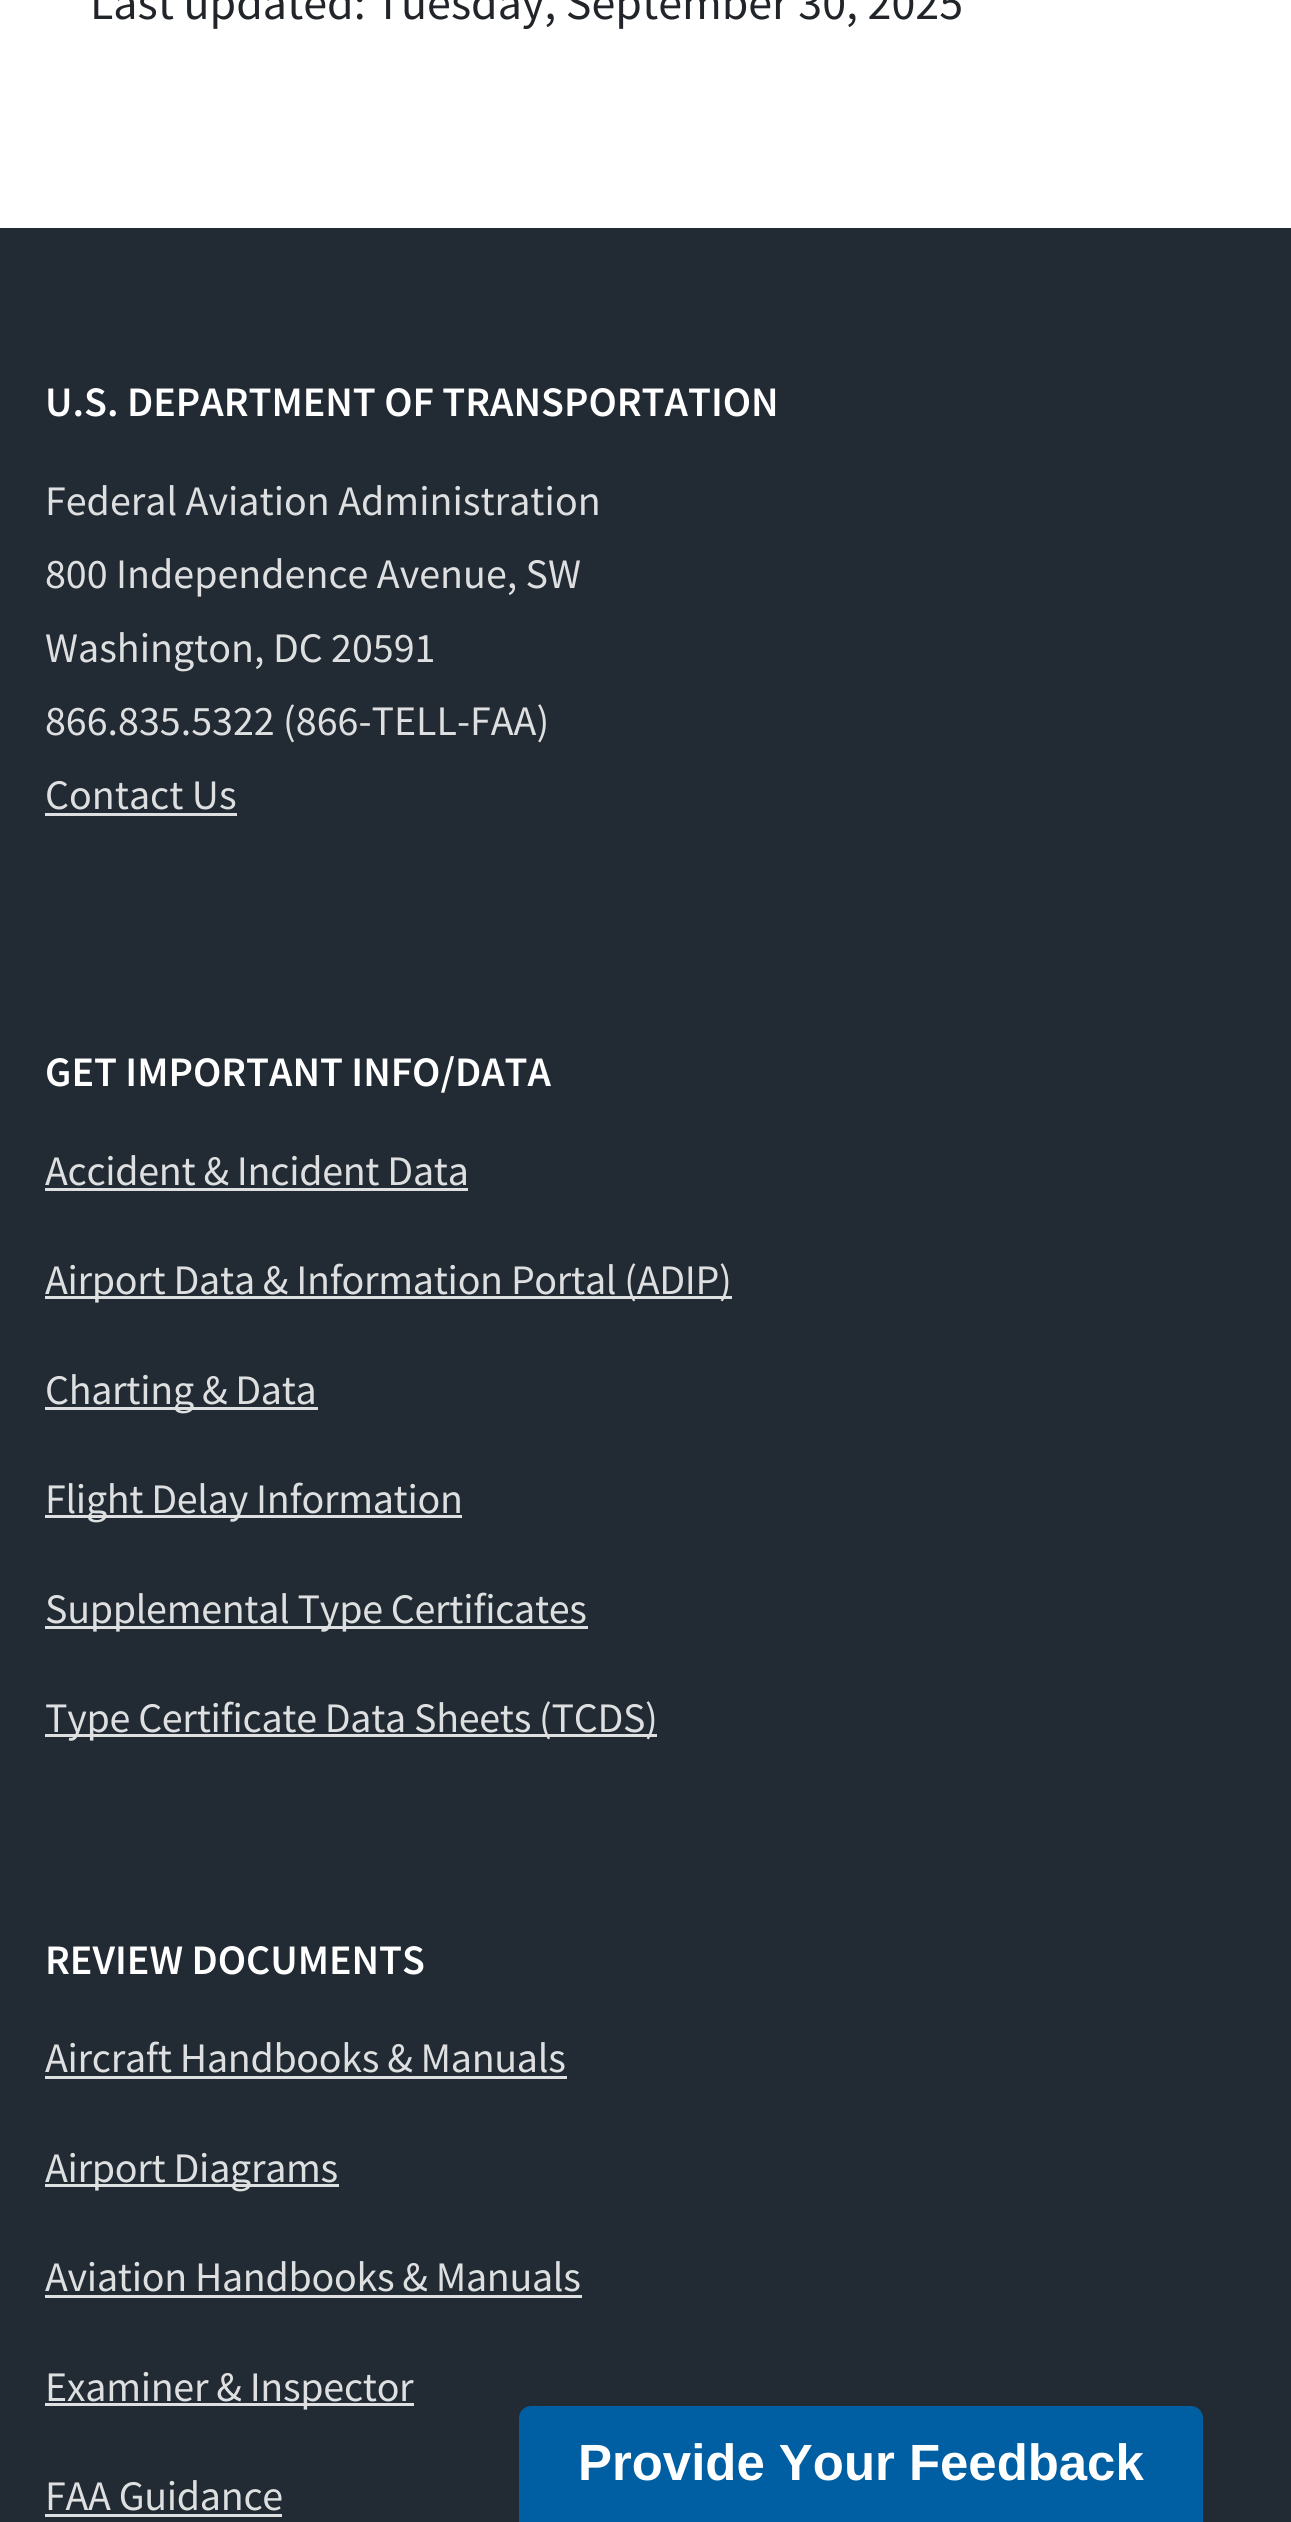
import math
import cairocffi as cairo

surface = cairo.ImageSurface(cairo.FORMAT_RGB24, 1291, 2522)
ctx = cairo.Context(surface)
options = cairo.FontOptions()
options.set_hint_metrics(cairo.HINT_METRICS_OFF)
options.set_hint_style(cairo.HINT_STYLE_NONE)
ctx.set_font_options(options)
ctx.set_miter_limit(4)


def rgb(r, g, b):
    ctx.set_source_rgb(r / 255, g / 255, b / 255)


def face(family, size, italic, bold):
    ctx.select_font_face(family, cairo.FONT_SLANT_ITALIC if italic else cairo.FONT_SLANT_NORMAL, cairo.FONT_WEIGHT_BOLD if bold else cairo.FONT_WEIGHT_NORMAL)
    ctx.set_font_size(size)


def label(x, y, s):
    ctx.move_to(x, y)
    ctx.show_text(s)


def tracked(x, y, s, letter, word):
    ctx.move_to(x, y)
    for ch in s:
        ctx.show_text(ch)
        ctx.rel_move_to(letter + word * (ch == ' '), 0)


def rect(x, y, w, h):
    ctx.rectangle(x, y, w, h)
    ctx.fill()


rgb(255, 255, 255)
ctx.paint()
face('Source Sans Pro', 48, 0, 0)
rgb(33, 37, 41)
label(90, 19, 'Last updated: Tuesday, September 30, 2025')
rgb(34, 43, 51)
rect(0, 228, 1291, 2294)
face('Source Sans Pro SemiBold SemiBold', 42, 0, 0)
rgb(255, 255, 255)
label(45, 416, 'U.S. DEPARTMENT OF TRANSPORTATION')
face('Source Sans Pro', 42, 0, 0)
rgb(222, 223, 224)
label(45, 515, 'Federal Aviation Administration')
label(45, 588, '800 Independence Avenue, SW')
label(45, 662, 'Washington, DC 20591')
label(45, 735, '866.835.5322 (866-TELL-FAA)')
label(45, 809, 'Contact Us')
rect(45, 813, 192, 3)
face('Source Sans Pro SemiBold SemiBold', 42, 0, 0)
rgb(255, 255, 255)
label(45, 1086, 'GET IMPORTANT INFO/DATA')
face('Source Sans Pro', 42, 0, 0)
rgb(222, 223, 224)
tracked(45, 1185, 'Accident & Incident Data', -0.3, 0)
rect(45, 1188, 423, 3)
rect(45, 1296, 687, 3)
tracked(45, 1294, 'Airport Data & Information Portal (ADIP)', -0.3, 0)
rect(45, 1407, 273, 3)
tracked(45, 1404, 'Charting & Data', -0.3, 0)
rect(45, 1515, 417, 3)
tracked(45, 1513, 'Flight Delay Information', -0.3, 0)
rect(45, 1626, 543, 3)
tracked(45, 1623, 'Supplemental Type Certificates', -0.3, 0)
rect(45, 1734, 612, 3)
tracked(45, 1732, 'Type Certificate Data Sheets (TCDS)', -0.3, 0)
face('Source Sans Pro SemiBold SemiBold', 42, 0, 0)
rgb(255, 255, 255)
label(45, 1974, 'REVIEW DOCUMENTS')
face('Source Sans Pro', 42, 0, 0)
rgb(222, 223, 224)
tracked(45, 2072, 'Aircraft Handbooks & Manuals', -0.3, 0)
rect(45, 2076, 522, 3)
rect(45, 2184, 294, 3)
tracked(45, 2182, 'Airport Diagrams', -0.3, 0)
tracked(45, 2291, 'Aviation Handbooks & Manuals', -0.3, 0)
rect(45, 2295, 537, 3)
rect(45, 2403, 369, 3)
tracked(45, 2401, 'Examiner & Inspector', -0.3, 0)
tracked(45, 2510, 'FAA Guidance', -0.3, 0)
rect(45, 2514, 237, 3)
rgb(0, 94, 162)
ctx.new_path()
ctx.move_to(531, 2406)
ctx.line_to(1191, 2406)
ctx.curve_to(1197.5, 2406, 1203, 2411.5, 1203, 2418)
ctx.line_to(1203, 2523)
ctx.line_to(519, 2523)
ctx.line_to(519, 2418)
ctx.curve_to(519, 2411.5, 524.5, 2406, 531, 2406)
ctx.close_path()
ctx.fill()
face('Liberation Sans', 50.9, 0, 1)
rgb(255, 255, 255)
label(578, 2480, 'Provide Your Feedback')
surface.write_to_png('render.png')
